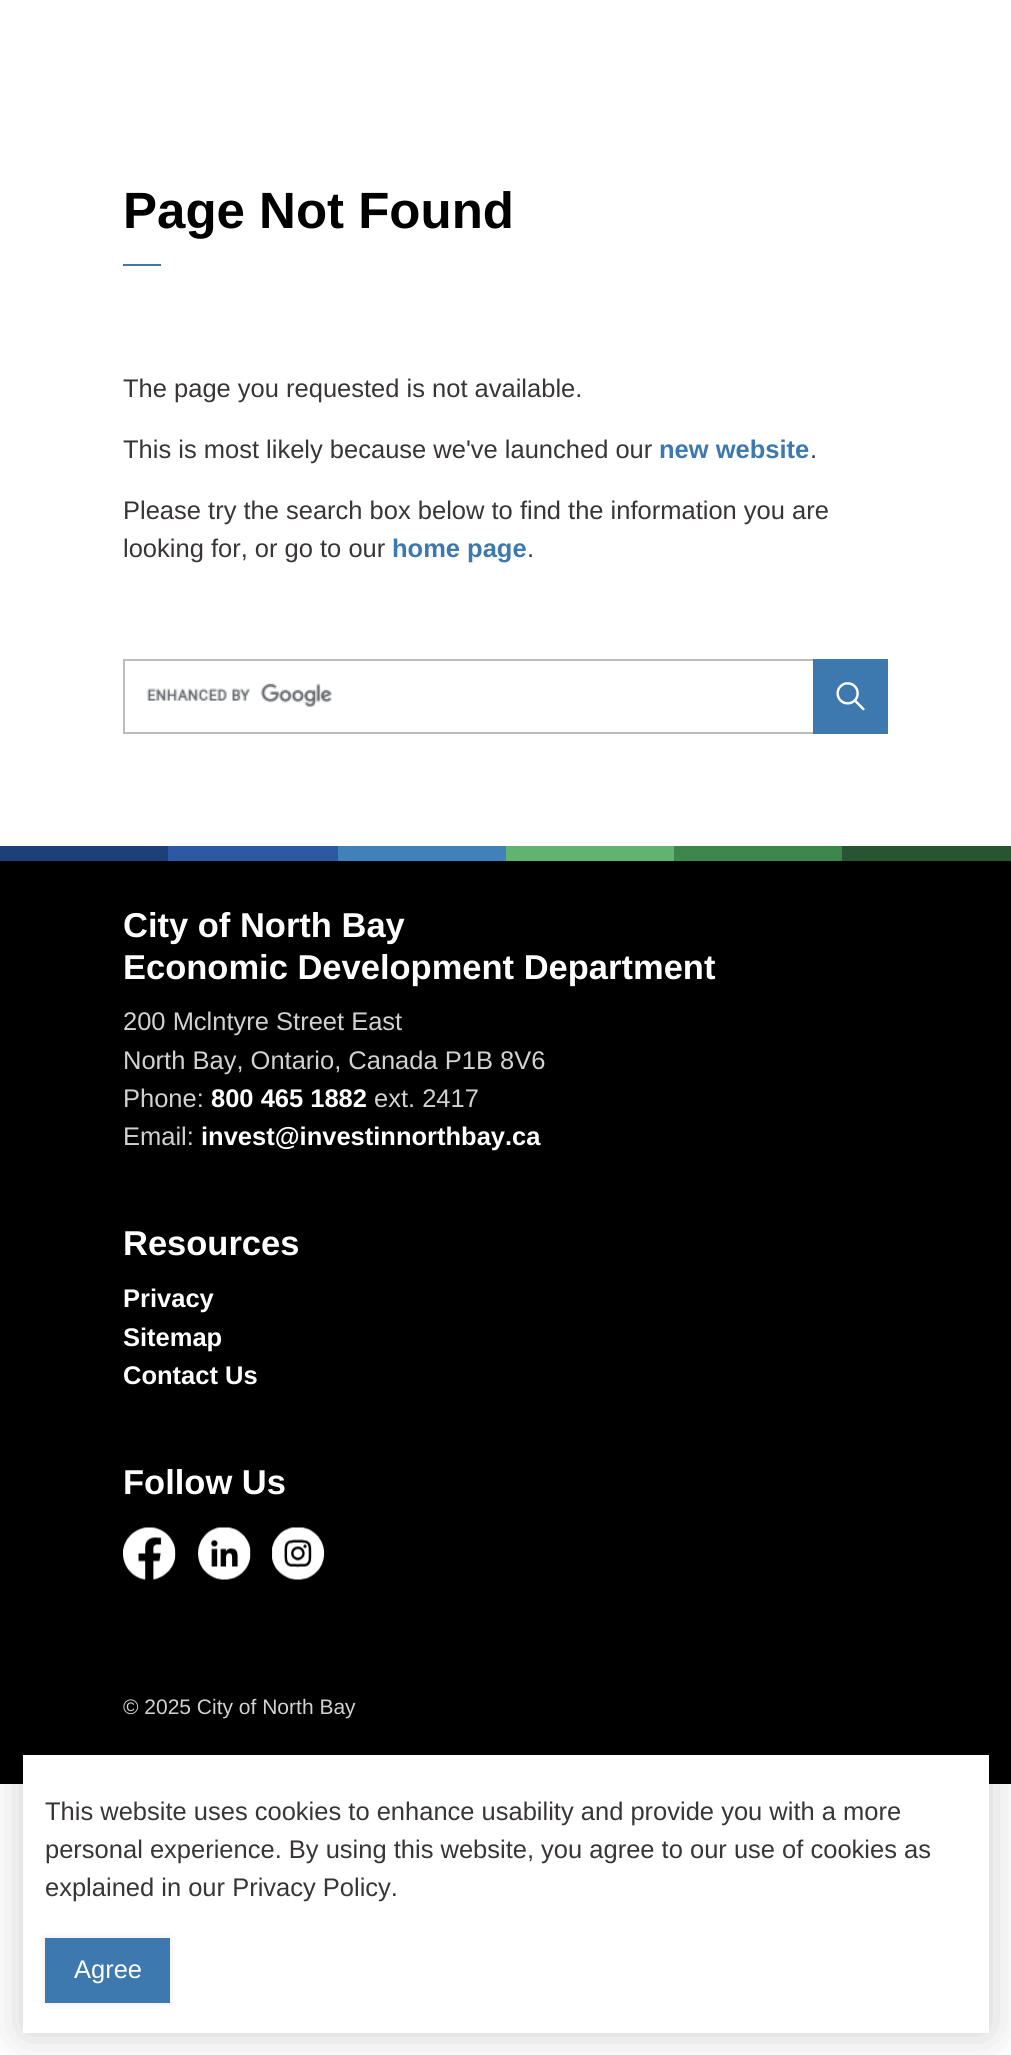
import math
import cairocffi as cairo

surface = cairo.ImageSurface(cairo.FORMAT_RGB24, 1011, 2055)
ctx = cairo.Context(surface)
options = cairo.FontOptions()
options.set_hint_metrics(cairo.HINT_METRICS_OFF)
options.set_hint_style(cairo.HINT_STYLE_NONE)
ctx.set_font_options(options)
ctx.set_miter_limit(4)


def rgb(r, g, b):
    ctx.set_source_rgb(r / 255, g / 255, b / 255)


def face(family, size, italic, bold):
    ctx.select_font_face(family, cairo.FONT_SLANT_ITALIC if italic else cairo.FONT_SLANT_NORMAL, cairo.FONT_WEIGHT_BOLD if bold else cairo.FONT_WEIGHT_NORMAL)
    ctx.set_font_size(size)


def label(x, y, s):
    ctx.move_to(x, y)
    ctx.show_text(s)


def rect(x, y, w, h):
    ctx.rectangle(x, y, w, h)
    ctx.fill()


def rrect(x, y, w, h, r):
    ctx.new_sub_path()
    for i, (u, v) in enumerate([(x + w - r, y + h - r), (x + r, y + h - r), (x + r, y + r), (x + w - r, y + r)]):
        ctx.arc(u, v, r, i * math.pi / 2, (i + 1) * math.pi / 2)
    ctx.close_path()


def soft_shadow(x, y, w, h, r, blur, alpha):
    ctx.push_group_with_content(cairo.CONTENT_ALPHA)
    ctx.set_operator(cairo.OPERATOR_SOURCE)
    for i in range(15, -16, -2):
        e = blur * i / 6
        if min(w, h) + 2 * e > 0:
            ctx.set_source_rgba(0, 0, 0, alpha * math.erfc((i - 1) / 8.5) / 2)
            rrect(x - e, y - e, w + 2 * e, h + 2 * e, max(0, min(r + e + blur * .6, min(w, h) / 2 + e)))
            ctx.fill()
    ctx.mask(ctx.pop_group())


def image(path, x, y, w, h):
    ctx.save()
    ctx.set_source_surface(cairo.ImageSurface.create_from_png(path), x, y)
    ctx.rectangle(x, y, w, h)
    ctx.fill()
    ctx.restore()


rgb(255, 255, 255)
ctx.paint()
face('Liberation Sans', 51, 0, 1)
rgb(0, 0, 0)
label(123, 228, 'Page Not Found')
rgb(61, 121, 174)
rect(123, 264, 38, 2)
face('Liberation Sans', 25.5, 0, 0)
rgb(57, 53, 54)
label(123, 397, 'The page you requested is not available.')
label(123, 458, 'This is most likely because we\'ve launched our')
face('Liberation Sans', 25.5, 0, 1)
rgb(61, 121, 174)
label(659, 458, 'new website')
face('Liberation Sans', 25.5, 0, 0)
rgb(57, 53, 54)
label(810, 458, '.')
label(123, 519, 'Please try the search box below to find the information you are')
label(123, 557, 'looking for, or go to our')
face('Liberation Sans', 25.5, 0, 1)
rgb(61, 121, 174)
label(392, 557, 'home page')
face('Liberation Sans', 25.5, 0, 0)
rgb(57, 53, 54)
label(527, 557, '.')
image('image0.png', 146, 683, 186, 24)
ctx.rectangle(124, 660, 756, 73)
rgb(189, 188, 188)
ctx.stroke()
rgb(61, 121, 174)
rect(813, 659, 75, 75)
image('image1.png', 836, 682, 29, 29)
rgb(0, 0, 0)
rect(0, 861, 1011, 923)
rgb(30, 64, 121)
rect(0, 846, 168, 15)
rgb(45, 89, 162)
rect(168, 846, 170, 15)
rgb(64, 129, 185)
rect(338, 846, 168, 15)
rgb(96, 180, 111)
rect(506, 846, 168, 15)
rgb(61, 134, 76)
rect(674, 846, 168, 15)
rgb(40, 84, 50)
rect(842, 846, 169, 15)
face('Liberation Sans', 34.5, 0, 1)
rgb(255, 255, 255)
label(123, 937, 'City of North Bay')
label(123, 979, 'Economic Development Department')
face('Liberation Sans', 25.5, 0, 0)
rgb(211, 210, 210)
label(123, 1030, '200 Mclntyre Street East')
label(123, 1069, 'North Bay, Ontario, Canada P1B 8V6')
label(123, 1107, 'Phone:')
face('Liberation Sans', 25.5, 0, 1)
rgb(255, 255, 255)
label(211, 1107, '800 465 1882')
face('Liberation Sans', 25.5, 0, 0)
rgb(211, 210, 210)
label(374, 1107, 'ext. 2417')
label(123, 1145, 'Email:')
face('Liberation Sans', 25.5, 0, 1)
rgb(255, 255, 255)
label(201, 1145, 'invest@investinnorthbay.ca')
face('Liberation Sans', 34.5, 0, 1)
label(123, 1255, 'Resources')
face('Liberation Sans', 25.5, 0, 1)
label(123, 1307, 'Privacy')
label(123, 1346, 'Sitemap')
label(123, 1384, 'Contact Us')
face('Liberation Sans', 34.5, 0, 1)
label(123, 1494, 'Follow Us')
image('image2.png', 123, 1527, 53, 53)
image('image3.png', 198, 1527, 53, 53)
image('image4.png', 272, 1527, 53, 53)
face('Liberation Sans', 21, 0, 0)
rgb(211, 210, 210)
label(123, 1714, '© 2025 City of North Bay')
rgb(0, 0, 0)
soft_shadow(23, 1755, 966, 278, 0, 22.5, 0.2)
rgb(255, 255, 255)
rect(23, 1755, 966, 278)
face('Liberation Sans', 25.5, 0, 0)
rgb(57, 53, 54)
label(45, 1820, 'This website uses cookies to enhance usability and provide you with a more')
label(45, 1858, 'personal experience. By using this website, you agree to our use of cookies as')
label(45, 1896, 'explained in our Privacy Policy.')
rgb(0, 0, 0)
soft_shadow(45, 1938, 125, 65, 0, 3, 0.1)
rgb(61, 121, 174)
rect(45, 1938, 125, 65)
rgb(255, 255, 255)
label(74, 1978, 'Agree')
surface.write_to_png('render.png')
